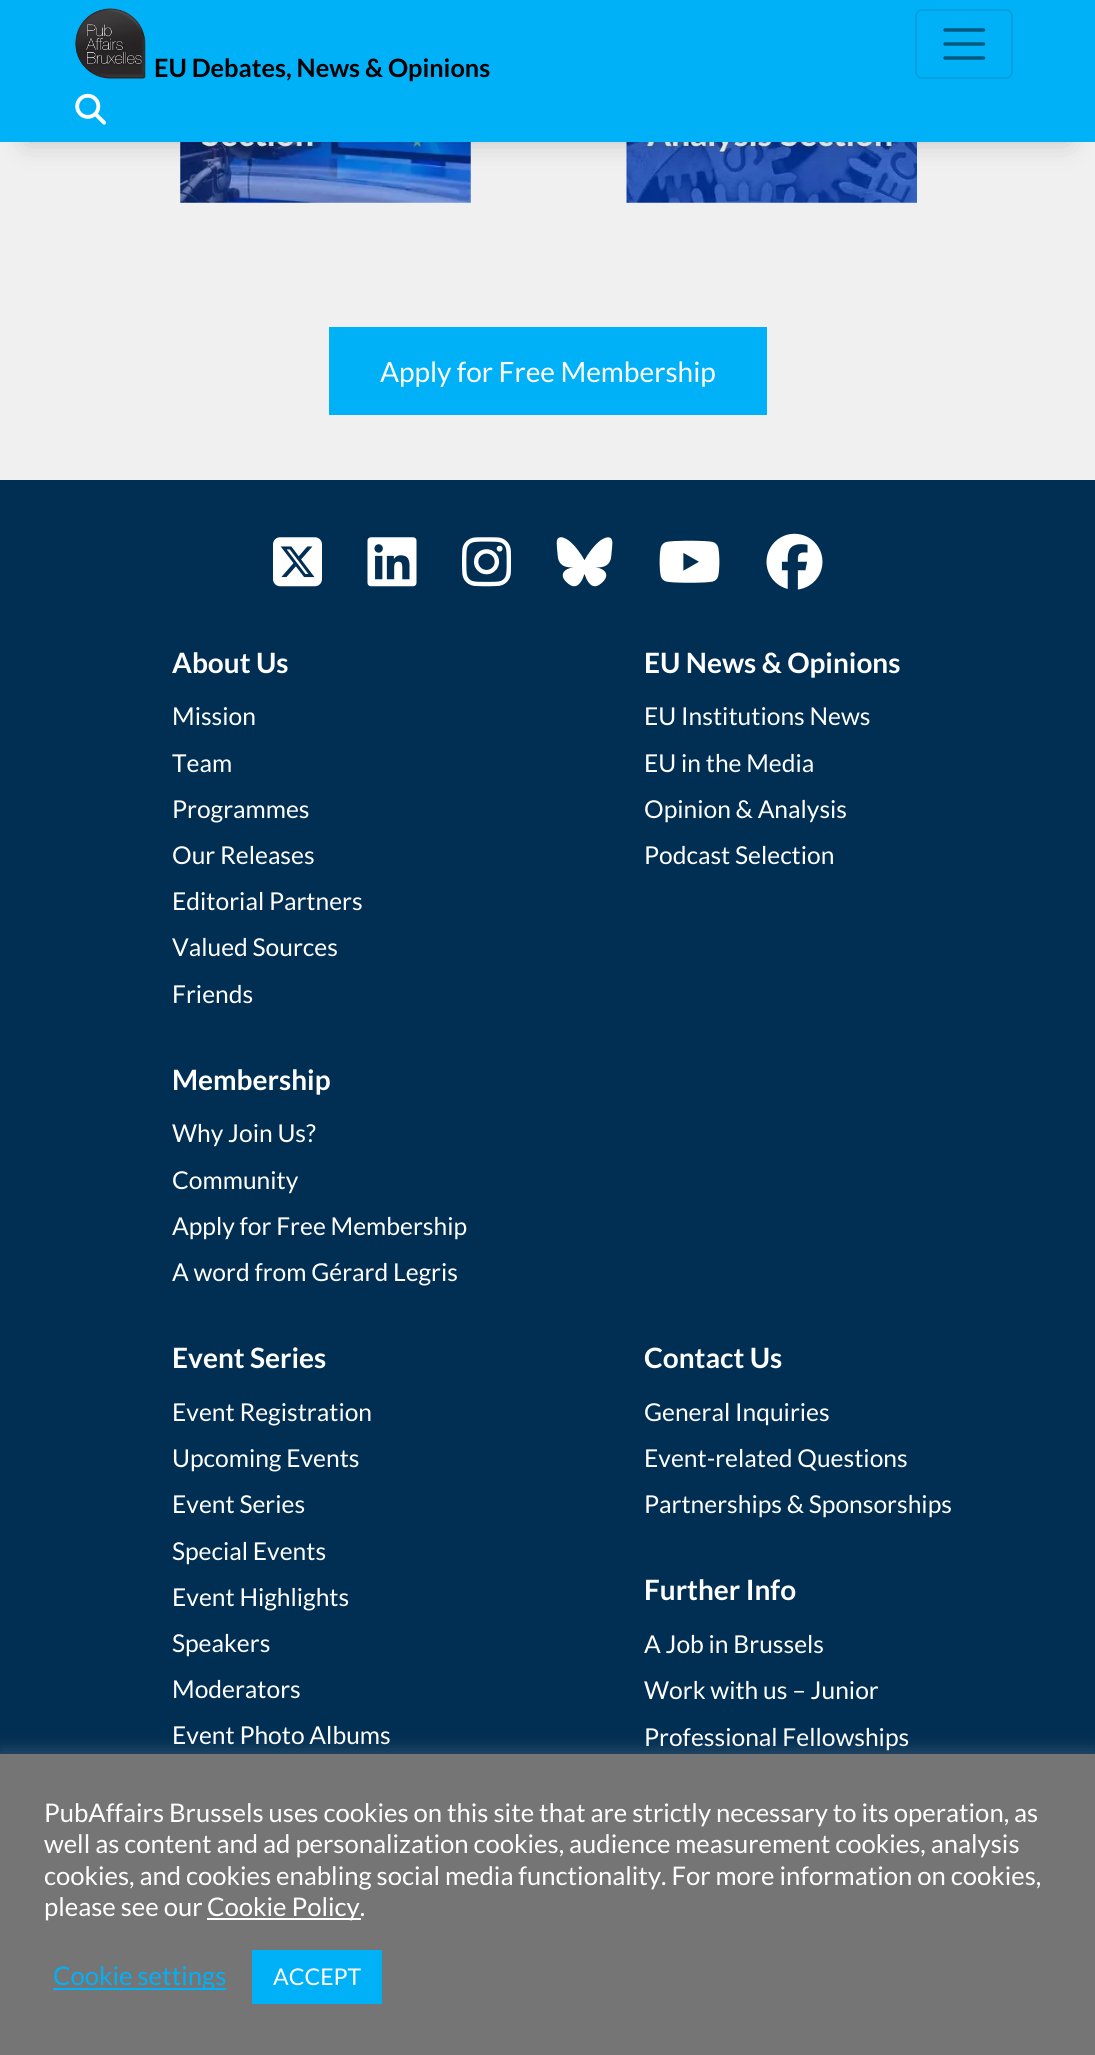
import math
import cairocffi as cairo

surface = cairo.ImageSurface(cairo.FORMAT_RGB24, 1095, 2055)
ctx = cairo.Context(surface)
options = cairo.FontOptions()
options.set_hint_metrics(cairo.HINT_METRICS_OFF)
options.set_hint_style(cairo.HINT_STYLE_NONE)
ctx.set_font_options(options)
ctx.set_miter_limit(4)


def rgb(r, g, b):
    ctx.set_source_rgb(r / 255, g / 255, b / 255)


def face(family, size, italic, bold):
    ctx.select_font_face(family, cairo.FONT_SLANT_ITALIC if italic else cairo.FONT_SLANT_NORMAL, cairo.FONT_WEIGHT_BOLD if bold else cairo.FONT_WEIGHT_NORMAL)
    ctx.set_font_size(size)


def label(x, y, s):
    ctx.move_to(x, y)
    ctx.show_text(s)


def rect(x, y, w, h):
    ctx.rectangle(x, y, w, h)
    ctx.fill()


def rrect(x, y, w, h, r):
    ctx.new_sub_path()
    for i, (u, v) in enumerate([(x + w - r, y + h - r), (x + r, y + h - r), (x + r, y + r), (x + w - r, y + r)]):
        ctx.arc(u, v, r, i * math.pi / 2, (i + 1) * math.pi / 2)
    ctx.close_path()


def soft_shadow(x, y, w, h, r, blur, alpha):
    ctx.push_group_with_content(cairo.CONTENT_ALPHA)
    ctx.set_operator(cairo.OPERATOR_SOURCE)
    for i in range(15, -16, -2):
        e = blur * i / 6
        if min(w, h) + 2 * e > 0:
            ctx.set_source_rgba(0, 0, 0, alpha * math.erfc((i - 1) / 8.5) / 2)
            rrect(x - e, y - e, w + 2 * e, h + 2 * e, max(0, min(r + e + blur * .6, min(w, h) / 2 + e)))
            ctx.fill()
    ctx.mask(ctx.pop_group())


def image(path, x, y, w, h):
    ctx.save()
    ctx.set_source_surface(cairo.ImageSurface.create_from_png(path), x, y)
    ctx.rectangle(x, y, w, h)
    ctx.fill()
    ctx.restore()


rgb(240, 240, 240)
ctx.paint()
image('image2.png', 180, 142, 291, 61)
image('image3.png', 626, 142, 291, 61)
rgb(0, 0, 0)
soft_shadow(26, 53, 1043, 89, 0, 13, 0.2)
rgb(0, 177, 248)
rect(0, 0, 1095, 142)
image('image0.png', 75, 8, 71, 71)
face('Lato', 25.25, 0, 1)
rgb(0, 0, 0)
label(154, 77, 'EU Debates, News & Opinions')
rrect(916, 10, 96, 68, 6)
rgb(0, 159, 223)
ctx.stroke()
ctx.new_path()
ctx.move_to(945, 30)
ctx.line_to(983.5, 30)
ctx.move_to(945, 44)
ctx.line_to(983.5, 44)
ctx.move_to(945, 58)
ctx.line_to(983.5, 58)
rgb(0, 89, 124)
ctx.set_line_width(3.5)
ctx.set_line_cap(cairo.LINE_CAP_ROUND)
ctx.stroke()
image('image1.png', 75, 93, 31, 32)
rgb(0, 177, 248)
rect(329, 327, 438, 88)
face('Lato', 28, 0, 0)
rgb(255, 255, 255)
label(380, 382, 'Apply for Free Membership')
rgb(1, 46, 83)
rect(0, 480, 1095, 1274)
image('image4.png', 273, 537, 49, 50)
image('image5.png', 367, 537, 50, 50)
image('image6.png', 462, 537, 49, 50)
image('image7.png', 556, 537, 57, 50)
image('image8.png', 659, 540, 61, 43)
image('image9.png', 766, 533, 57, 57)
face('Lato', 28, 0, 1)
rgb(255, 255, 255)
label(172, 673, 'About Us')
face('Lato', 24.6, 0, 0)
label(172, 725, 'Mission')
label(172, 772, 'Team')
label(172, 818, 'Programmes')
label(172, 864, 'Our Releases')
label(172, 910, 'Editorial Partners')
label(172, 956, 'Valued Sources')
label(172, 1003, 'Friends')
face('Lato', 28, 0, 1)
label(172, 1090, 'Membership')
face('Lato', 24.6, 0, 0)
label(172, 1142, 'Why Join Us?')
label(172, 1189, 'Community')
label(172, 1235, 'Apply for Free Membership')
label(172, 1281, 'A word from Gérard Legris')
face('Lato', 28, 0, 1)
label(644, 673, 'EU News & Opinions')
face('Lato', 24.6, 0, 0)
label(644, 725, 'EU Institutions News')
label(644, 772, 'EU in the Media')
label(644, 818, 'Opinion & Analysis')
label(644, 864, 'Podcast Selection')
face('Lato', 28, 0, 1)
label(172, 1368, 'Event Series')
face('Lato', 24.6, 0, 0)
label(172, 1421, 'Event Registration')
label(172, 1467, 'Upcoming Events')
label(172, 1513, 'Event Series')
label(172, 1560, 'Special Events')
label(172, 1606, 'Event Highlights')
label(172, 1652, 'Speakers')
label(172, 1698, 'Moderators')
label(172, 1744, 'Event Photo Albums')
face('Lato', 28, 0, 1)
label(644, 1368, 'Contact Us')
face('Lato', 24.6, 0, 0)
label(644, 1421, 'General Inquiries')
label(644, 1467, 'Event-related Questions')
label(644, 1513, 'Partnerships & Sponsorships')
face('Lato', 28, 0, 1)
label(644, 1600, 'Further Info')
face('Lato', 24.6, 0, 0)
label(644, 1653, 'A Job in Brussels')
label(644, 1699, 'Work with us – Junior')
label(644, 1746, 'Professional Fellowships')
rgb(172, 171, 171)
soft_shadow(0, 1752, 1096, 303, 0, 9, 0.3)
rgb(117, 117, 117)
rect(0, 1754, 1095, 301)
face('Lato', 25.65, 0, 0)
rgb(255, 255, 255)
label(44, 1822, 'PubAffairs Brussels uses cookies on this site that are strictly necessary to its operation, as')
label(44, 1853, 'well as content and ad personalization cookies, audience measurement cookies, analysis')
label(44, 1885, 'cookies, and cookies enabling social media functionality. For more information on cookies,')
label(44, 1916, 'please see our')
rect(207, 1918, 154, 2)
label(207, 1916, 'Cookie Policy.')
rgb(0, 177, 248)
rect(53, 1988, 173, 2)
label(53, 1985, 'Cookie settings')
rect(252, 1950, 130, 54)
face('Lato', 23, 0, 0)
rgb(255, 255, 255)
label(273, 1985, 'ACCEPT')
surface.write_to_png('render.png')
